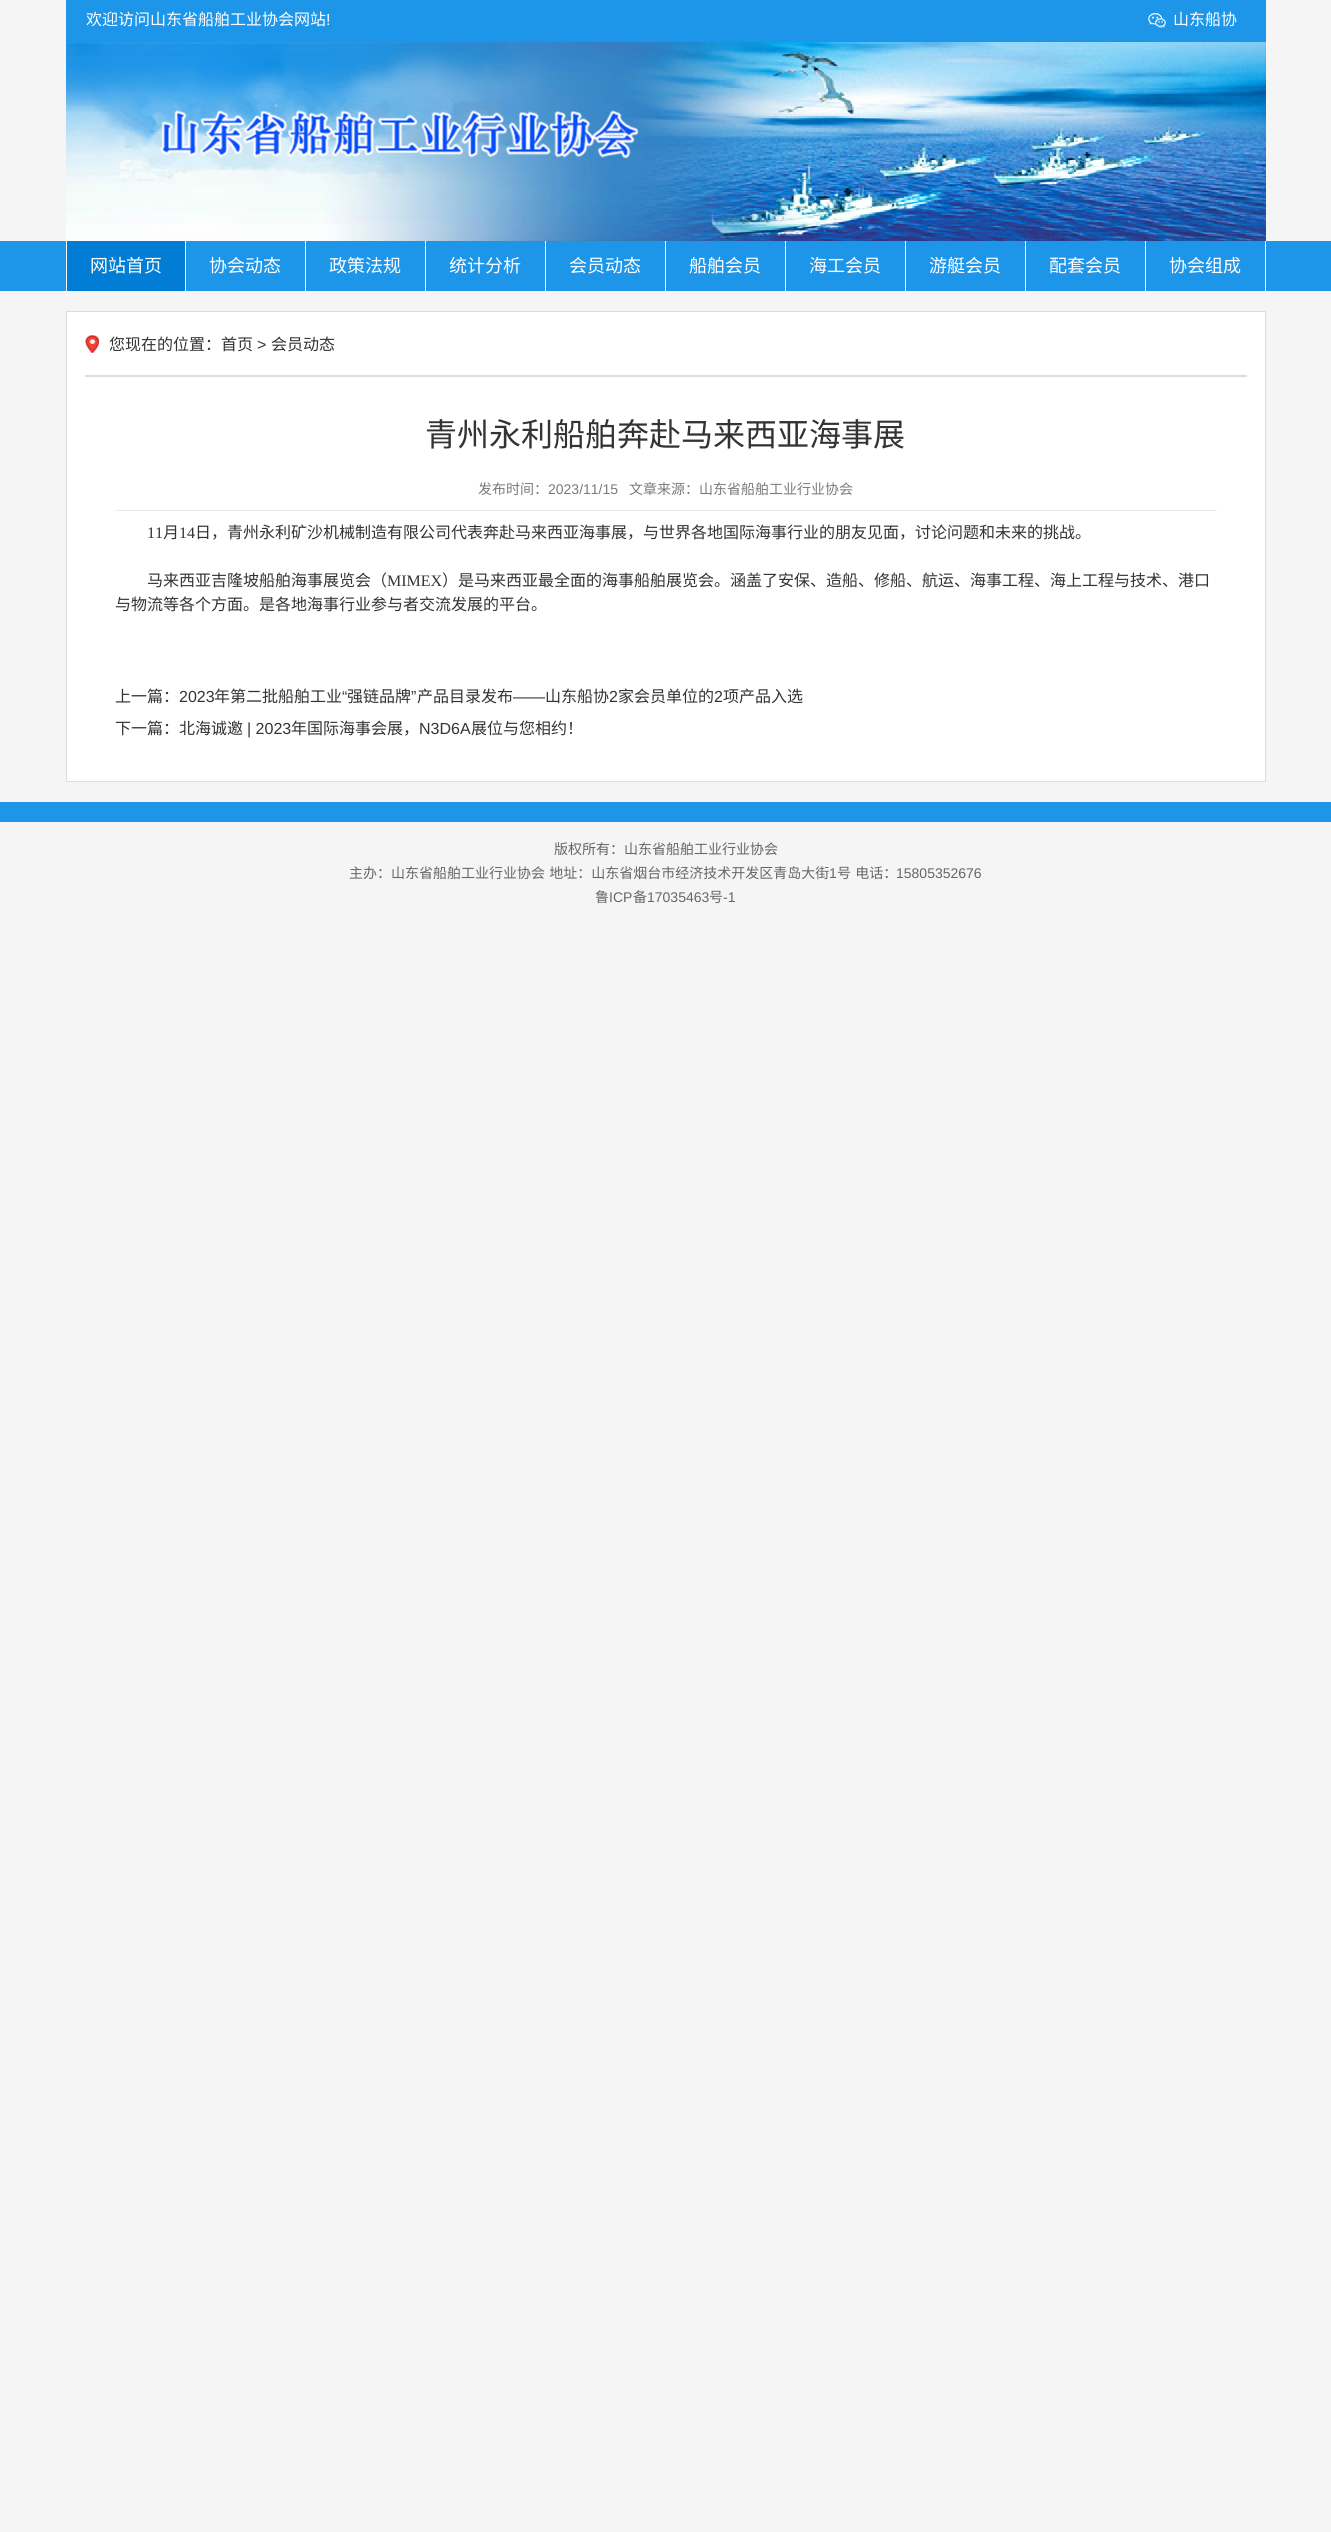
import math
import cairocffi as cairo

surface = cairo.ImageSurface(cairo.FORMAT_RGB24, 1331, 2532)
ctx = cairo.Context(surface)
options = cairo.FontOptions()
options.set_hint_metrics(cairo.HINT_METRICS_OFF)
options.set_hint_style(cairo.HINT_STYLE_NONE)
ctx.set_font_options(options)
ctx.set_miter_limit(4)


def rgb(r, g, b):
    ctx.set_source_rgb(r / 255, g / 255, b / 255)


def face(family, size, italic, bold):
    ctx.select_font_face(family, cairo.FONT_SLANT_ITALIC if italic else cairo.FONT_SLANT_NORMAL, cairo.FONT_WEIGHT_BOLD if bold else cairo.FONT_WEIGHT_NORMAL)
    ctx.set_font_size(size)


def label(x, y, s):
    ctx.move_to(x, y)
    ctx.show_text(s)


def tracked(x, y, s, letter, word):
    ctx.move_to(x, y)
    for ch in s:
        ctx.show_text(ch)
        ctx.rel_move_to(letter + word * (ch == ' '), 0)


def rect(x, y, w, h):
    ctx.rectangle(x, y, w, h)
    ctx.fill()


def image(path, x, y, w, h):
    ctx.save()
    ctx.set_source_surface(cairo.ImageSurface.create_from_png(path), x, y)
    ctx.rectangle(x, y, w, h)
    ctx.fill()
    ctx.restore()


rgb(245, 245, 245)
ctx.paint()
rgb(29, 149, 233)
rect(66, 0, 1200, 42)
face('Noto Sans CJK SC', 16, 0, 0)
rgb(255, 255, 255)
label(86, 25, '欢迎访问山东省船舶工业协会网站')
face('Liberation Sans', 16, 0, 0)
label(326, 25, '!')
image('image0.png', 1148, 13, 18, 15)
face('Noto Sans CJK SC', 16, 0, 0)
label(1173, 25, '山东船协')
image('image1.png', 66, 42, 1200, 199)
rgb(29, 149, 233)
rect(0, 241, 1331, 50)
rgb(1, 125, 213)
rect(67, 241, 118, 50)
rgb(255, 255, 255)
rect(185, 241, 1, 50)
rect(66, 241, 1, 50)
face('Noto Sans CJK SC', 18, 0, 0)
label(90, 272, '网站首页')
rect(305, 241, 1, 50)
label(209, 272, '协会动态')
rect(425, 241, 1, 50)
label(329, 272, '政策法规')
rect(545, 241, 1, 50)
label(449, 272, '统计分析')
rect(665, 241, 1, 50)
label(569, 272, '会员动态')
rect(785, 241, 1, 50)
label(689, 272, '船舶会员')
rect(905, 241, 1, 50)
label(809, 272, '海工会员')
rect(1025, 241, 1, 50)
label(929, 272, '游艇会员')
rect(1145, 241, 1, 50)
label(1049, 272, '配套会员')
rect(1265, 241, 1, 50)
label(1169, 272, '协会组成')
ctx.rectangle(66.5, 311.5, 1199, 470)
ctx.fill_preserve()
rgb(221, 221, 221)
ctx.set_line_width(1)
ctx.stroke()
image('image2.png', 85, 335, 14, 18)
rect(85, 375, 1162, 2)
face('Noto Sans CJK SC', 16, 0, 0)
rgb(51, 51, 51)
label(109, 350, '您现在的位置：首页')
face('Liberation Sans', 16, 0, 0)
label(257, 350, '>')
face('Noto Sans CJK SC', 16, 0, 0)
label(271, 350, '会员动态')
face('Noto Sans CJK SC', 32, 0, 0)
label(425, 446, '青州永利船舶奔赴马来西亚海事展')
rgb(234, 234, 234)
rect(115, 510, 1102, 1)
face('Noto Sans CJK SC', 14, 0, 0)
rgb(122, 122, 122)
label(478, 494, '发布时间：')
face('Liberation Sans', 14, 0, 0)
label(548, 494, '2023/11/15')
face('Noto Sans CJK SC', 14, 0, 0)
label(629, 494, '文章来源：山东省船舶工业行业协会')
face('Liberation Serif', 16, 0, 0)
rgb(51, 51, 51)
label(147, 538, '11')
face('Noto Sans CJK SC', 16, 0, 0)
label(163, 538, '月')
face('Liberation Serif', 16, 0, 0)
label(179, 538, '14')
face('Noto Sans CJK SC', 16, 0, 0)
label(195, 538, '日，青州永利矿沙机械制造有限公司代表奔赴马来西亚海事展，与世界各地国际海事行业的朋友见面，讨论问题和未来的挑战。')
label(147, 586, '马来西亚吉隆坡船舶海事展览会（')
face('Liberation Serif', 16, 0, 0)
label(387, 586, 'MIMEX')
face('Noto Sans CJK SC', 16, 0, 0)
label(442, 586, '）是马来西亚最全面的海事船舶展览会。涵盖了安保、造船、修船、航运、海事工程、海上工程与技术、港口')
label(115, 610, '与物流等各个方面。是各地海事行业参与者交流发展的平台。')
label(115, 702, '上一篇：')
face('Liberation Sans', 16, 0, 0)
label(179, 702, '2023')
face('Noto Sans CJK SC', 16, 0, 0)
label(214, 702, '年第二批船舶工业')
face('Liberation Sans', 16, 0, 0)
label(342, 702, '“')
face('Noto Sans CJK SC', 16, 0, 0)
label(347, 702, '强链品牌')
face('Liberation Sans', 16, 0, 0)
label(411, 702, '”')
face('Noto Sans CJK SC', 16, 0, 0)
label(417, 702, '产品目录发布')
label(545, 702, '山东船协')
face('Liberation Sans', 16, 0, 0)
label(609, 702, '2')
face('Noto Sans CJK SC', 16, 0, 0)
label(618, 702, '家会员单位的')
face('Liberation Sans', 16, 0, 0)
label(714, 702, '2')
face('Noto Sans CJK SC', 16, 0, 0)
label(723, 702, '项产品入选')
face('Liberation Sans', 16, 0, 0)
label(513, 702, '——')
face('Noto Sans CJK SC', 16, 0, 0)
label(115, 734, '下一篇：北海诚邀')
face('Liberation Sans', 16, 0, 0)
label(247, 734, '| 2023')
face('Noto Sans CJK SC', 16, 0, 0)
label(291, 734, '年国际海事会展，')
face('Liberation Sans', 16, 0, 0)
label(419, 734, 'N3D6A')
face('Noto Sans CJK SC', 16, 0, 0)
label(471, 734, '展位与您相约！')
rgb(29, 149, 233)
rect(0, 802, 1331, 20)
face('Noto Sans CJK SC', 14, 0, 0)
rgb(102, 102, 102)
label(554, 854, '版权所有：山东省船舶工业行业协会')
tracked(349, 878, '主办：山东省船舶工业行业协会 地址：山东省烟台市经济技术开发区青岛大街', 0, 1)
face('Liberation Sans', 14, 0, 0)
label(829, 878, '1')
face('Noto Sans CJK SC', 14, 0, 0)
tracked(837, 878, '号 电话：', 0, 1)
face('Liberation Sans', 14, 0, 0)
label(896, 878, '15805352676')
face('Noto Sans CJK SC', 14, 0, 0)
label(595, 902, '鲁')
face('Liberation Sans', 14, 0, 0)
label(609, 902, 'ICP')
face('Noto Sans CJK SC', 14, 0, 0)
label(633, 902, '备')
face('Liberation Sans', 14, 0, 0)
label(647, 902, '17035463')
face('Noto Sans CJK SC', 14, 0, 0)
label(709, 902, '号')
face('Liberation Sans', 14, 0, 0)
label(723, 902, '-1')
surface.write_to_png('render.png')
